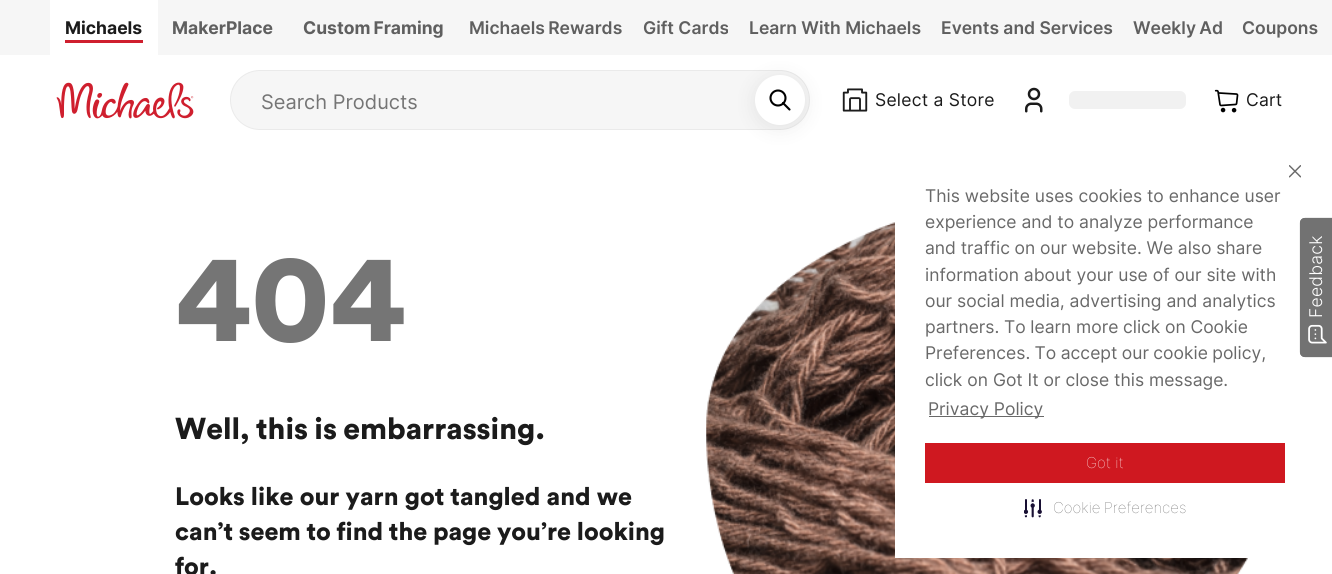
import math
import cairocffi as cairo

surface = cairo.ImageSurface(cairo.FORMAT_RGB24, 1332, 574)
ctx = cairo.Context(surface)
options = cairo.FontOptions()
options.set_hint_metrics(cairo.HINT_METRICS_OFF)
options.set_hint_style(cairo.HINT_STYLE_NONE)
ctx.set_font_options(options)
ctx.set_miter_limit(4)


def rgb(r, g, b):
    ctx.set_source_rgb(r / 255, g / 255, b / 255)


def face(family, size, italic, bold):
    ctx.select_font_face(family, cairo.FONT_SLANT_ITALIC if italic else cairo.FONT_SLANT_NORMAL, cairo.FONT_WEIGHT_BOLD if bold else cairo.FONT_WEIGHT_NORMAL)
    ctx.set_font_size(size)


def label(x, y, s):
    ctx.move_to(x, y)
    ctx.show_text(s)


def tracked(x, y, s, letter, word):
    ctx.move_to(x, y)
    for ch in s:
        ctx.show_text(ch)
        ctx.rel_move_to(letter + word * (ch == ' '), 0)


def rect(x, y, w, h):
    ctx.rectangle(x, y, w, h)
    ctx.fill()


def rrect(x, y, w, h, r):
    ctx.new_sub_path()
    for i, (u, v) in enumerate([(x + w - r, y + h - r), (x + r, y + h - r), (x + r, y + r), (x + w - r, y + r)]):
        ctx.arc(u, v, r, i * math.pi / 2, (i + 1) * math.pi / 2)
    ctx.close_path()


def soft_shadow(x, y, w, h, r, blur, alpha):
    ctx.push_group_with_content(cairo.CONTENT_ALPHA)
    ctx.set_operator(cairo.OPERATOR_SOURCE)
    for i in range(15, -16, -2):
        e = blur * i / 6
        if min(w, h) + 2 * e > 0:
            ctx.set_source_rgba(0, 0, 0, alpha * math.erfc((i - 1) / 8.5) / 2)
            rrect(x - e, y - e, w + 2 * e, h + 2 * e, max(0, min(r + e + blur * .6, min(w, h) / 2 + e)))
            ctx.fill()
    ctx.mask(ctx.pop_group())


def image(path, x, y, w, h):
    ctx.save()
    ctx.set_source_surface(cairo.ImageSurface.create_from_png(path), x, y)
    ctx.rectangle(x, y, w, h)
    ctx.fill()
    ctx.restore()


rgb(255, 255, 255)
ctx.paint()
rgb(246, 246, 246)
rect(0, 0, 1332, 55)
rgb(255, 255, 255)
rect(50, 0, 108, 55)
rgb(207, 31, 46)
rect(65, 40, 78, 3)
face('Inter', 17.5, 0, 1)
rgb(27, 27, 27)
label(65, 34, 'Michaels')
rgb(95, 95, 95)
label(172, 34, 'MakerPlace')
tracked(303, 34, 'Custom Framing', 0, -1)
face('Inter SemiBold', 17.5, 0, 0)
tracked(469, 34, 'Michaels Rewards', 0, -1)
label(643, 34, 'Gift Cards')
label(749, 34, 'Learn With Michaels')
label(941, 34, 'Events and Services')
tracked(1133, 34, 'Weekly Ad', 0, -1)
label(1242, 34, 'Coupons')
image('image0.png', 56, 82, 138, 37)
rgb(246, 246, 246)
rrect(230.5, 70.5, 579, 59, 29.5)
ctx.fill_preserve()
rgb(234, 234, 234)
ctx.set_line_width(1)
ctx.stroke()
face('Inter', 20, 0, 0)
rgb(117, 117, 117)
label(261, 109, 'Search Products')
rgb(57, 57, 57)
soft_shadow(755, 78, 50, 50, 25, 9.5, 0.1)
rgb(255, 255, 255)
ctx.arc(780, 100, 25, 0, 2 * math.pi)
ctx.fill()
ctx.arc(778, 98, 7.5, 0, 2 * math.pi)
rgb(0, 0, 0)
ctx.set_line_width(2.1)
ctx.stroke()
ctx.new_path()
ctx.move_to(789.5, 109.5)
ctx.line_to(783, 103)
ctx.set_line_cap(cairo.LINE_CAP_ROUND)
ctx.set_line_join(cairo.LINE_JOIN_ROUND)
ctx.stroke()
image('image1.png', 842, 88, 26, 24)
face('Inter', 17.5, 0, 0)
rgb(27, 27, 27)
tracked(875, 106, 'Select a Store', 0.25, 0)
image('image2.png', 1025, 87, 18, 26)
rgb(241, 241, 241)
rrect(1069, 91, 117, 18, 6)
ctx.fill()
image('image3.png', 1214, 89, 25, 24)
rgb(27, 27, 27)
tracked(1246, 106, 'Cart', 0.25, 0)
rgb(114, 114, 114)
ctx.new_path()
ctx.move_to(1300, 352)
ctx.line_to(1300, 223)
ctx.curve_to(1300, 220, 1302, 218, 1305, 218)
ctx.line_to(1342, 218)
ctx.line_to(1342, 357)
ctx.line_to(1305, 357)
ctx.curve_to(1302, 357, 1300, 355, 1300, 352)
ctx.close_path()
ctx.fill()
ctx.new_path()
ctx.move_to(1300.5, 352)
ctx.line_to(1300.5, 223)
ctx.curve_to(1300.5, 220.5, 1302.5, 218.5, 1305, 218.5)
ctx.line_to(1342, 218.5)
ctx.line_to(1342, 356.5)
ctx.line_to(1305, 356.5)
ctx.curve_to(1302.5, 356.5, 1300.5, 354.5, 1300.5, 352)
ctx.close_path()
ctx.set_line_width(1.2)
ctx.set_line_cap(cairo.LINE_CAP_BUTT)
ctx.set_line_join(cairo.LINE_JOIN_MITER)
ctx.stroke()
face('Inter Light', 17.5, 0, 0)
rgb(255, 255, 255)
ctx.save()
ctx.translate(1322, 318)
ctx.rotate(-90 * math.pi / 180)
tracked(0, 0, 'Feedback', 0.25, 0)
ctx.restore()
image('image4.png', 1308, 324, 19, 20)
face('Circular Black', 125, 0, 0)
rgb(117, 117, 117)
label(175, 341, '404')
face('Circular Black', 30, 0, 0)
rgb(27, 27, 27)
tracked(175, 439, 'Well, this is embarrassing.', 0, -1)
face('Circular Black', 25, 0, 0)
label(175, 505, 'Looks like our yarn got tangled and we')
tracked(175, 540, 'can’t seem to find the page you’re looking', 0, -0.5)
label(175, 575, 'for.')
image('image5.png', 706, 222, 542, 352)
rgb(255, 255, 255)
rect(895, 222, 353, 336)
face('Inter', 17.5, 0, 0)
rgb(105, 105, 105)
label(925, 202, 'This website uses cookies to enhance user')
label(925, 228, 'experience and to analyze performance')
tracked(925, 254, 'and traffic on our website. We also share', 0, -0.25)
label(925, 281, 'information about your use of our site with')
label(925, 307, 'our social media, advertising and analytics')
tracked(925, 333, 'partners. To learn more click on Cookie', 0, -0.25)
tracked(925, 359, 'Preferences. To accept our cookie policy,', 0, -0.5)
label(925, 386, 'click on Got It or close this message.')
rect(929, 416, 115, 1)
label(928, 415, 'Privacy Policy')
image('image6.png', 1289, 165, 12, 13)
rgb(207, 24, 32)
rect(925, 443, 360, 40)
face('Inter Thin', 15, 0, 0)
rgb(255, 255, 255)
label(1086, 468, 'Got it')
image('image7.png', 1024, 499, 18, 19)
rgb(105, 105, 105)
tracked(1053, 513, 'Cookie Preferences', 0, -1)
surface.write_to_png('render.png')
